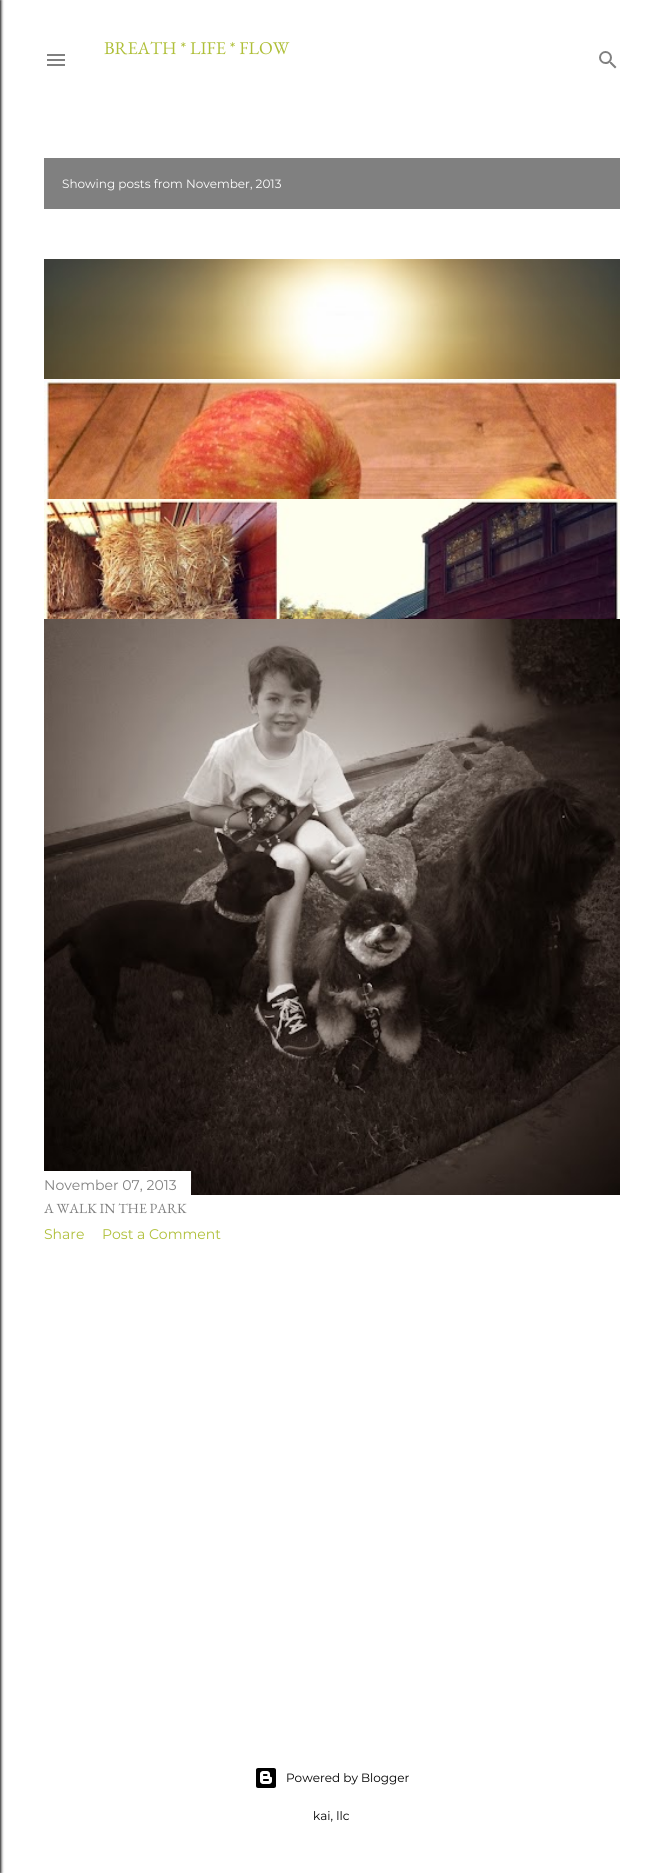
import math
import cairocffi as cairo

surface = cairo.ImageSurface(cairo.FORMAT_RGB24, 663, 1873)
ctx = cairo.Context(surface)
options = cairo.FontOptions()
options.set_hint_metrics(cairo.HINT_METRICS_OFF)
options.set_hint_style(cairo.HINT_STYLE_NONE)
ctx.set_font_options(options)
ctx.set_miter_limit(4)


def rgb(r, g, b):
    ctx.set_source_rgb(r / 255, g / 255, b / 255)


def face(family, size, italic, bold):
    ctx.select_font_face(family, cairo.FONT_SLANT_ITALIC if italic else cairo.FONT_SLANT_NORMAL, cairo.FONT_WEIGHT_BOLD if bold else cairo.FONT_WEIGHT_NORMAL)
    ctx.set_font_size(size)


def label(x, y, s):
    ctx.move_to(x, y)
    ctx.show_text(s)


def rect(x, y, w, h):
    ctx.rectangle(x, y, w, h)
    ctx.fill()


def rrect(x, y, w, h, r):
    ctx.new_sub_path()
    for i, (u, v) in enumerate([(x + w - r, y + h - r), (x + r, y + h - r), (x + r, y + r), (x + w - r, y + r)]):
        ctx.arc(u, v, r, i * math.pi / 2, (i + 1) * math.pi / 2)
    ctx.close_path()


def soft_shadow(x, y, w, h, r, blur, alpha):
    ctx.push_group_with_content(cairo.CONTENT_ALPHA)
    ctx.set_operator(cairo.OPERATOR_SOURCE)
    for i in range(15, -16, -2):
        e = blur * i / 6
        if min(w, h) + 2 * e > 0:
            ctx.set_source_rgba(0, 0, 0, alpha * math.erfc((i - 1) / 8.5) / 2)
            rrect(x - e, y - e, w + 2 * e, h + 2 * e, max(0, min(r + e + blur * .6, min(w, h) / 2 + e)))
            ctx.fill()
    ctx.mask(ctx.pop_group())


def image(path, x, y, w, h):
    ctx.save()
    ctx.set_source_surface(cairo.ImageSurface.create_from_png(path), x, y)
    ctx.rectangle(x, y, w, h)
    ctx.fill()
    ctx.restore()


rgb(255, 255, 255)
ctx.paint()
rgb(0, 0, 0)
soft_shadow(-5, 0, 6, 1873, 0, 1.5, 1)
face('EB Garamond', 18, 0, 0)
rgb(175, 191, 56)
label(104, 54, 'BREATH * LIFE * FLOW')
image('image0.png', 47, 54, 18, 12)
image('image1.png', 599, 51, 18, 18)
rgb(128, 128, 128)
rect(44, 158, 576, 51)
face('Montserrat', 12, 0, 0)
rgb(255, 255, 255)
label(62, 188, 'Showing posts from November, 2013')
image('image2.png', 44, 259, 576, 120)
image('image3.png', 44, 379, 576, 120)
image('image4.png', 44, 499, 576, 120)
image('image5.png', 44, 619, 576, 576)
rect(44, 1171, 147, 24)
face('Montserrat', 14, 0, 0)
rgb(128, 128, 128)
label(44, 1190, 'November 07, 2013')
face('EB Garamond', 14, 0, 0)
label(44, 1213, 'A WALK IN THE PARK')
face('Montserrat', 14, 0, 0)
rgb(175, 191, 56)
label(44, 1239, 'Share')
label(102, 1239, 'Post a Comment')
image('image6.png', 256, 1768, 20, 20)
face('Montserrat', 12, 0, 0)
rgb(0, 0, 0)
label(286, 1782, 'Powered by Blogger')
label(313, 1820, 'kai, llc')
surface.write_to_png('render.png')
